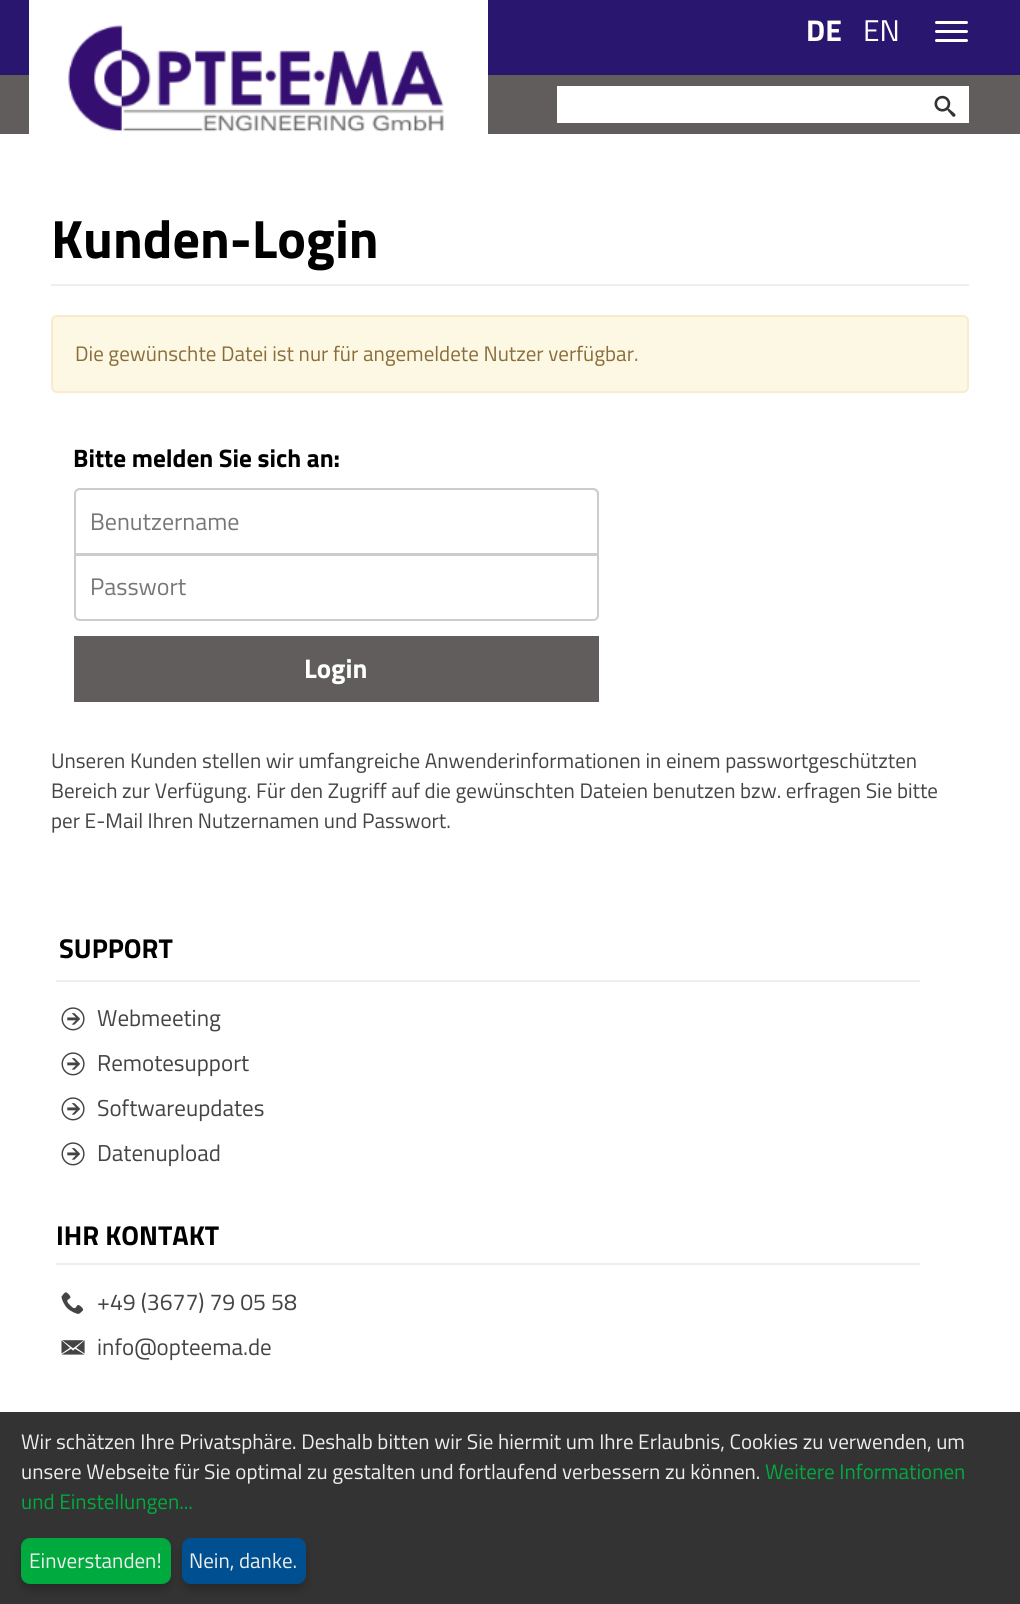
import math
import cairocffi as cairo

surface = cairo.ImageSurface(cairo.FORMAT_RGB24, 1020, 1604)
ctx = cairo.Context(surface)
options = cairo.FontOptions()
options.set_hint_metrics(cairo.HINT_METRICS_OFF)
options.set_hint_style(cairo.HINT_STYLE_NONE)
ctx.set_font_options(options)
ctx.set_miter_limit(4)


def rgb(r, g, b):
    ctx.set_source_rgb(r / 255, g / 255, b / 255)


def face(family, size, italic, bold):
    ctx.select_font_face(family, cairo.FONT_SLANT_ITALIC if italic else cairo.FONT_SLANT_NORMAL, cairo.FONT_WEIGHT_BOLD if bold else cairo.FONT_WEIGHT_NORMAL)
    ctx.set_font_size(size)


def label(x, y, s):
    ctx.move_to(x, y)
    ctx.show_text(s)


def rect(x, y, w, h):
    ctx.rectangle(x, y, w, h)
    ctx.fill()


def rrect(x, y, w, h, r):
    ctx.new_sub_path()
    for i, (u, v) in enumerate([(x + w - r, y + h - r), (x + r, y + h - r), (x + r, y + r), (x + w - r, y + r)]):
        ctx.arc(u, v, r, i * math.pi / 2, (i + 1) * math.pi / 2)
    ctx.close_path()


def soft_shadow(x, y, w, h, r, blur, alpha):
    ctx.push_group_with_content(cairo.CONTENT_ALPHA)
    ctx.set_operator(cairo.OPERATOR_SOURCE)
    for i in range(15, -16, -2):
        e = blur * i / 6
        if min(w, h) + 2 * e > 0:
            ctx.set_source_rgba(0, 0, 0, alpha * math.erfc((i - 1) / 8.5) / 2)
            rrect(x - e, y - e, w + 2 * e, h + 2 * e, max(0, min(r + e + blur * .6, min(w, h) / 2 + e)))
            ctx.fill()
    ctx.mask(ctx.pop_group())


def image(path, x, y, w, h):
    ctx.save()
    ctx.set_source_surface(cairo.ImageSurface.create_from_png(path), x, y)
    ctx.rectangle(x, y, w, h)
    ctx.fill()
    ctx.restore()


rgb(255, 255, 255)
ctx.paint()
rgb(40, 22, 111)
rect(0, 0, 1020, 75)
rgb(96, 93, 92)
rect(0, 75, 1020, 59)
rgb(255, 255, 255)
rect(29, 0, 459, 134)
image('image0.png', 68, 24, 376, 108)
face('Titillium Web', 30, 0, 1)
label(806, 41, 'DE')
face('Titillium Web', 30, 0, 0)
label(863, 41, 'EN')
rrect(935, 21, 33, 3, 1.5)
ctx.fill()
rrect(935, 30, 33, 3, 1.5)
ctx.fill()
rrect(935, 39, 33, 3, 1.5)
ctx.fill()
rect(557, 86, 412, 37)
image('image1.png', 934, 95, 22, 22)
rgb(238, 238, 238)
rect(51, 284, 918, 2)
face('Titillium Web', 54, 0, 1)
rgb(0, 0, 0)
label(51, 258, 'Kunden-Login')
rgb(252, 248, 227)
rrect(52, 316, 916, 76, 5)
ctx.fill_preserve()
rgb(250, 235, 204)
ctx.stroke()
face('Titillium Web', 21, 0, 0)
rgb(138, 109, 59)
label(75, 361, 'Die gewünschte Datei ist nur für angemeldete Nutzer verfügbar.')
face('Titillium Web', 25.25, 0, 1)
rgb(0, 0, 0)
label(73, 467, 'Bitte melden Sie sich an:')
rgb(236, 236, 236)
ctx.new_path()
ctx.move_to(80, 490)
ctx.line_to(592, 490)
ctx.curve_to(595, 490, 597, 493, 597, 495)
ctx.line_to(597, 494)
ctx.curve_to(597, 491, 595, 489, 592, 489)
ctx.line_to(80, 489)
ctx.curve_to(77, 489, 75, 491, 75, 494)
ctx.line_to(75, 495)
ctx.curve_to(75, 493, 77, 490, 80, 490)
ctx.close_path()
ctx.fill()
ctx.new_path()
ctx.move_to(80, 489)
ctx.line_to(593, 489)
ctx.curve_to(596, 489, 598, 491, 598, 494)
ctx.line_to(598, 554)
ctx.line_to(75, 554)
ctx.line_to(75, 494)
ctx.curve_to(75, 491, 77, 489, 80, 489)
ctx.close_path()
rgb(204, 204, 204)
ctx.stroke()
face('Titillium Web', 24, 0, 0)
rgb(119, 119, 119)
label(90, 530, 'Benutzername')
rgb(255, 255, 255)
ctx.new_path()
ctx.move_to(75, 555)
ctx.line_to(598, 555)
ctx.line_to(598, 615)
ctx.curve_to(598, 618, 596, 620, 593, 620)
ctx.line_to(80, 620)
ctx.curve_to(77, 620, 75, 618, 75, 615)
ctx.close_path()
ctx.fill_preserve()
rgb(204, 204, 204)
ctx.stroke()
rgb(119, 119, 119)
label(90, 595, 'Passwort')
rgb(96, 93, 92)
rect(74, 636, 525, 66)
face('Titillium Web', 27, 0, 1)
rgb(255, 255, 255)
label(304, 678, 'Login')
face('Titillium Web', 21, 0, 0)
rgb(68, 68, 68)
label(51, 768, 'Unseren Kunden stellen wir umfangreiche Anwenderinformationen in einem passwortgeschützten')
label(51, 798, 'Bereich zur Verfügung. Für den Zugriff auf die gewünschten Dateien benutzen bzw. erfragen Sie bitte')
label(51, 828, 'per E-Mail Ihren Nutzernamen und Passwort.')
rgb(238, 238, 238)
rect(56, 980, 864, 2)
face('Titillium Web', 27.25, 0, 1)
rgb(0, 0, 0)
label(59, 958, 'SUPPORT')
image('image2.png', 61, 1007, 24, 24)
face('Titillium Web', 23, 0, 0)
rgb(68, 68, 68)
label(97, 1026, 'Webmeeting')
image('image2.png', 61, 1052, 24, 24)
label(97, 1071, 'Remotesupport')
image('image2.png', 61, 1097, 24, 24)
label(97, 1116, 'Softwareupdates')
image('image2.png', 61, 1142, 24, 24)
label(97, 1161, 'Datenupload')
rgb(238, 238, 238)
rect(56, 1263, 864, 2)
face('Titillium Web', 27.25, 0, 1)
rgb(0, 0, 0)
label(56, 1245, 'IHR KONTAKT')
image('image3.png', 61, 1292, 23, 22)
face('Titillium Web', 23, 0, 0)
rgb(68, 68, 68)
label(97, 1310, '+49 (3677) 79 05 58')
image('image4.png', 61, 1340, 24, 15)
label(97, 1355, 'info@opteema.de')
rgb(51, 51, 51)
rect(0, 1412, 1020, 192)
face('Titillium Web', 21, 0, 0)
rgb(238, 238, 238)
label(21, 1449, 'Wir schätzen Ihre Privatsphäre. Deshalb bitten wir Sie hiermit um Ihre Erlaubnis, Cookies zu verwenden, um')
label(21, 1479, 'unsere Webseite für Sie optimal zu gestalten und fortlaufend verbessern zu können.')
rgb(0, 170, 62)
label(765, 1479, 'Weitere Informationen')
label(21, 1509, 'und Einstellungen...')
rgb(0, 0, 0)
soft_shadow(21, 1544, 150, 46, 9, 4.5, 0.2)
rgb(0, 170, 62)
rrect(21, 1538, 150, 46, 9)
ctx.fill()
rgb(238, 238, 238)
label(29, 1568, 'Einverstanden!')
rgb(0, 0, 0)
soft_shadow(182, 1544, 124, 46, 9, 4.5, 0.2)
rgb(0, 80, 145)
rrect(182, 1538, 124, 46, 9)
ctx.fill()
rgb(238, 238, 238)
label(189, 1568, 'Nein, danke.')
surface.write_to_png('render.png')
